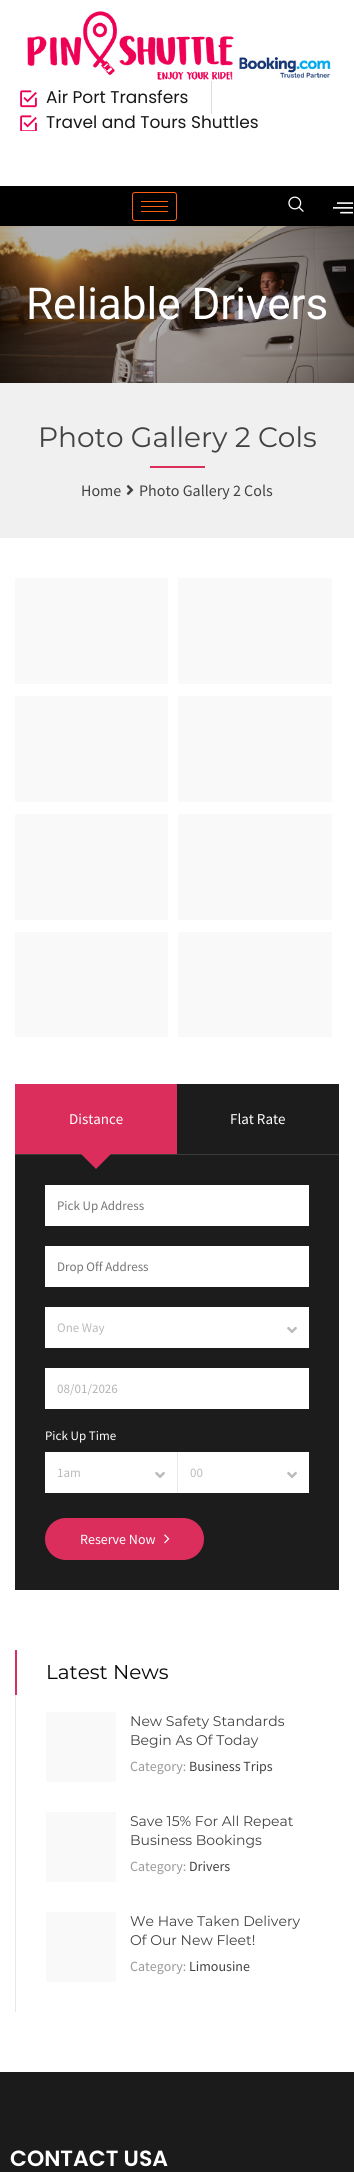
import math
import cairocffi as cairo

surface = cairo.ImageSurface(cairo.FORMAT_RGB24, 354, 2172)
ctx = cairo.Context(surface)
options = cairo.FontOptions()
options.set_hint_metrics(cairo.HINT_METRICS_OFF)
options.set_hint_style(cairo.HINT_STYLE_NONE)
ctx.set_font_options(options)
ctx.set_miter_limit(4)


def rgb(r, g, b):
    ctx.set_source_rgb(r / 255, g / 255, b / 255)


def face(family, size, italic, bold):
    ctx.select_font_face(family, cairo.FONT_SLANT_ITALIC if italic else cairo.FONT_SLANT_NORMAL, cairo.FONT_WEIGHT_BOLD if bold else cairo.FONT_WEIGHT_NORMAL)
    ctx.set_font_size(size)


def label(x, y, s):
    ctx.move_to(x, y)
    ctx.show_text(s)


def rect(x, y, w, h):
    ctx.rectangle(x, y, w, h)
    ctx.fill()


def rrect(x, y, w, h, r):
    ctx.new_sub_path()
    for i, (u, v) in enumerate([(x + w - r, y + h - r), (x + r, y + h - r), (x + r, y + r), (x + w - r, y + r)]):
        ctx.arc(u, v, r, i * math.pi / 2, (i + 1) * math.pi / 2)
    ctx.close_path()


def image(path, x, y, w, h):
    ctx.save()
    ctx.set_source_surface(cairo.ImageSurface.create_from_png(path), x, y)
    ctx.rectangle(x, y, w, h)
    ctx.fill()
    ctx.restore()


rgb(255, 255, 255)
ctx.paint()
image('image0.png', 27, 11, 304, 69)
image('image1.png', 20, 90, 17, 18)
face('Poppins', 17, 0, 0)
rgb(23, 23, 24)
label(46, 103, 'Air Port Transfers')
rgb(221, 221, 221)
rect(211, 81, 1, 33)
image('image2.png', 20, 115, 17, 16)
rgb(23, 23, 24)
label(46, 128, 'Travel and Tours Shuttles')
rgb(0, 0, 0)
rect(0, 186, 354, 40)
rrect(132.5, 192.5, 44, 28, 2.5)
rgb(255, 94, 19)
ctx.set_line_width(1)
ctx.stroke()
rect(141, 201, 27, 1)
rect(141, 206, 27, 1)
rect(141, 211, 27, 1)
image('image3.png', 288, 196, 16, 16)
image('image4.png', 333, 202, 20, 12)
image('image5.png', 0, 226, 354, 157)
face('Roboto', 44, 0, 0)
rgb(255, 255, 255)
label(26, 319, 'Reliable Drivers')
rgb(240, 240, 240)
rect(0, 383, 354, 155)
face('Montserrat', 28, 0, 0)
rgb(66, 66, 66)
label(38, 447, 'Photo Gallery 2 Cols')
rgb(219, 46, 92)
rect(150, 466, 55, 2)
face('Source Sans Pro', 16, 0, 0)
rgb(66, 66, 66)
label(81, 496, 'Home')
image('image6.png', 126, 485, 8, 10)
label(139, 496, 'Photo Gallery 2 Cols')
rgb(249, 249, 249)
rect(15, 578, 153, 106)
rect(178, 578, 154, 106)
rect(15, 696, 153, 106)
rect(178, 696, 154, 106)
rect(15, 814, 153, 106)
rect(178, 814, 154, 106)
rect(15, 932, 153, 105)
rect(178, 932, 154, 105)
rgb(28, 28, 28)
rect(15, 1084, 324, 506)
rgb(219, 46, 92)
rect(15, 1084, 162, 70)
rgb(59, 59, 59)
rect(15, 1154, 324, 1)
face('Source Sans Pro', 15, 0, 0)
rgb(255, 255, 255)
label(69, 1124, 'Distance')
rgb(219, 46, 92)
ctx.new_path()
ctx.move_to(81, 1154)
ctx.line_to(111, 1154)
ctx.line_to(96, 1169)
ctx.close_path()
ctx.fill()
rgb(255, 255, 255)
label(230, 1124, 'Flat Rate')
rect(45, 1185, 264, 41)
face('Source Sans Pro', 13, 0, 0)
rgb(117, 117, 117)
label(57, 1210, 'Pick Up Address')
rgb(255, 255, 255)
rect(45, 1246, 264, 41)
rgb(117, 117, 117)
label(57, 1271, 'Drop Off Address')
rgb(255, 255, 255)
rect(45, 1307, 264, 41)
rgb(187, 187, 187)
label(57, 1332, 'One Way')
image('image7.png', 287, 1326, 10, 8)
rgb(255, 255, 255)
rect(45, 1368, 264, 41)
rgb(180, 180, 180)
label(57, 1393, '08/01/2026')
rgb(255, 255, 255)
label(45, 1440, 'Pick Up Time')
rect(45, 1452, 132, 41)
rgb(187, 187, 187)
label(57, 1477, '1am')
image('image7.png', 155, 1471, 10, 8)
rgb(255, 255, 255)
rect(178, 1452, 131, 41)
rgb(232, 232, 232)
rect(177, 1452, 1, 41)
rgb(187, 187, 187)
label(190, 1477, '00')
image('image7.png', 287, 1471, 10, 8)
rgb(219, 46, 92)
rrect(45, 1518, 159, 42, 21)
ctx.fill()
face('Source Sans Pro', 14, 0, 0)
rgb(255, 255, 255)
label(80, 1544, 'Reserve Now')
image('image8.png', 164, 1534, 6, 10)
rgb(232, 232, 232)
rect(15, 1695, 1, 317)
rgb(219, 46, 92)
rect(15, 1650, 2, 45)
face('Montserrat', 20, 0, 0)
rgb(7, 7, 7)
label(46, 1679, 'Latest News')
rgb(249, 249, 249)
rect(46, 1712, 70, 70)
face('Montserrat', 14, 0, 0)
rgb(66, 66, 66)
label(130, 1726, 'New Safety Standards')
label(130, 1745, 'Begin As Of Today')
face('Source Sans Pro', 14, 0, 0)
rgb(153, 153, 153)
label(130, 1771, 'Category:')
rgb(66, 66, 66)
label(189, 1771, 'Business Trips')
rgb(249, 249, 249)
rect(46, 1812, 70, 70)
face('Montserrat', 14, 0, 0)
rgb(66, 66, 66)
label(130, 1826, 'Save 15% For All Repeat')
label(130, 1845, 'Business Bookings')
face('Source Sans Pro', 14, 0, 0)
rgb(153, 153, 153)
label(130, 1871, 'Category:')
rgb(66, 66, 66)
label(189, 1871, 'Drivers')
rgb(249, 249, 249)
rect(46, 1912, 70, 70)
face('Montserrat', 14, 0, 0)
rgb(66, 66, 66)
label(130, 1926, 'We Have Taken Delivery')
label(130, 1945, 'Of Our New Fleet!')
face('Source Sans Pro', 14, 0, 0)
rgb(153, 153, 153)
label(130, 1971, 'Category:')
rgb(66, 66, 66)
label(189, 1971, 'Limousine')
rgb(27, 27, 27)
rect(0, 2072, 354, 100)
face('Poppins SemiBold', 22, 0, 0)
rgb(255, 255, 255)
label(10, 2166, 'CONTACT USA')
surface.write_to_png('render.png')
